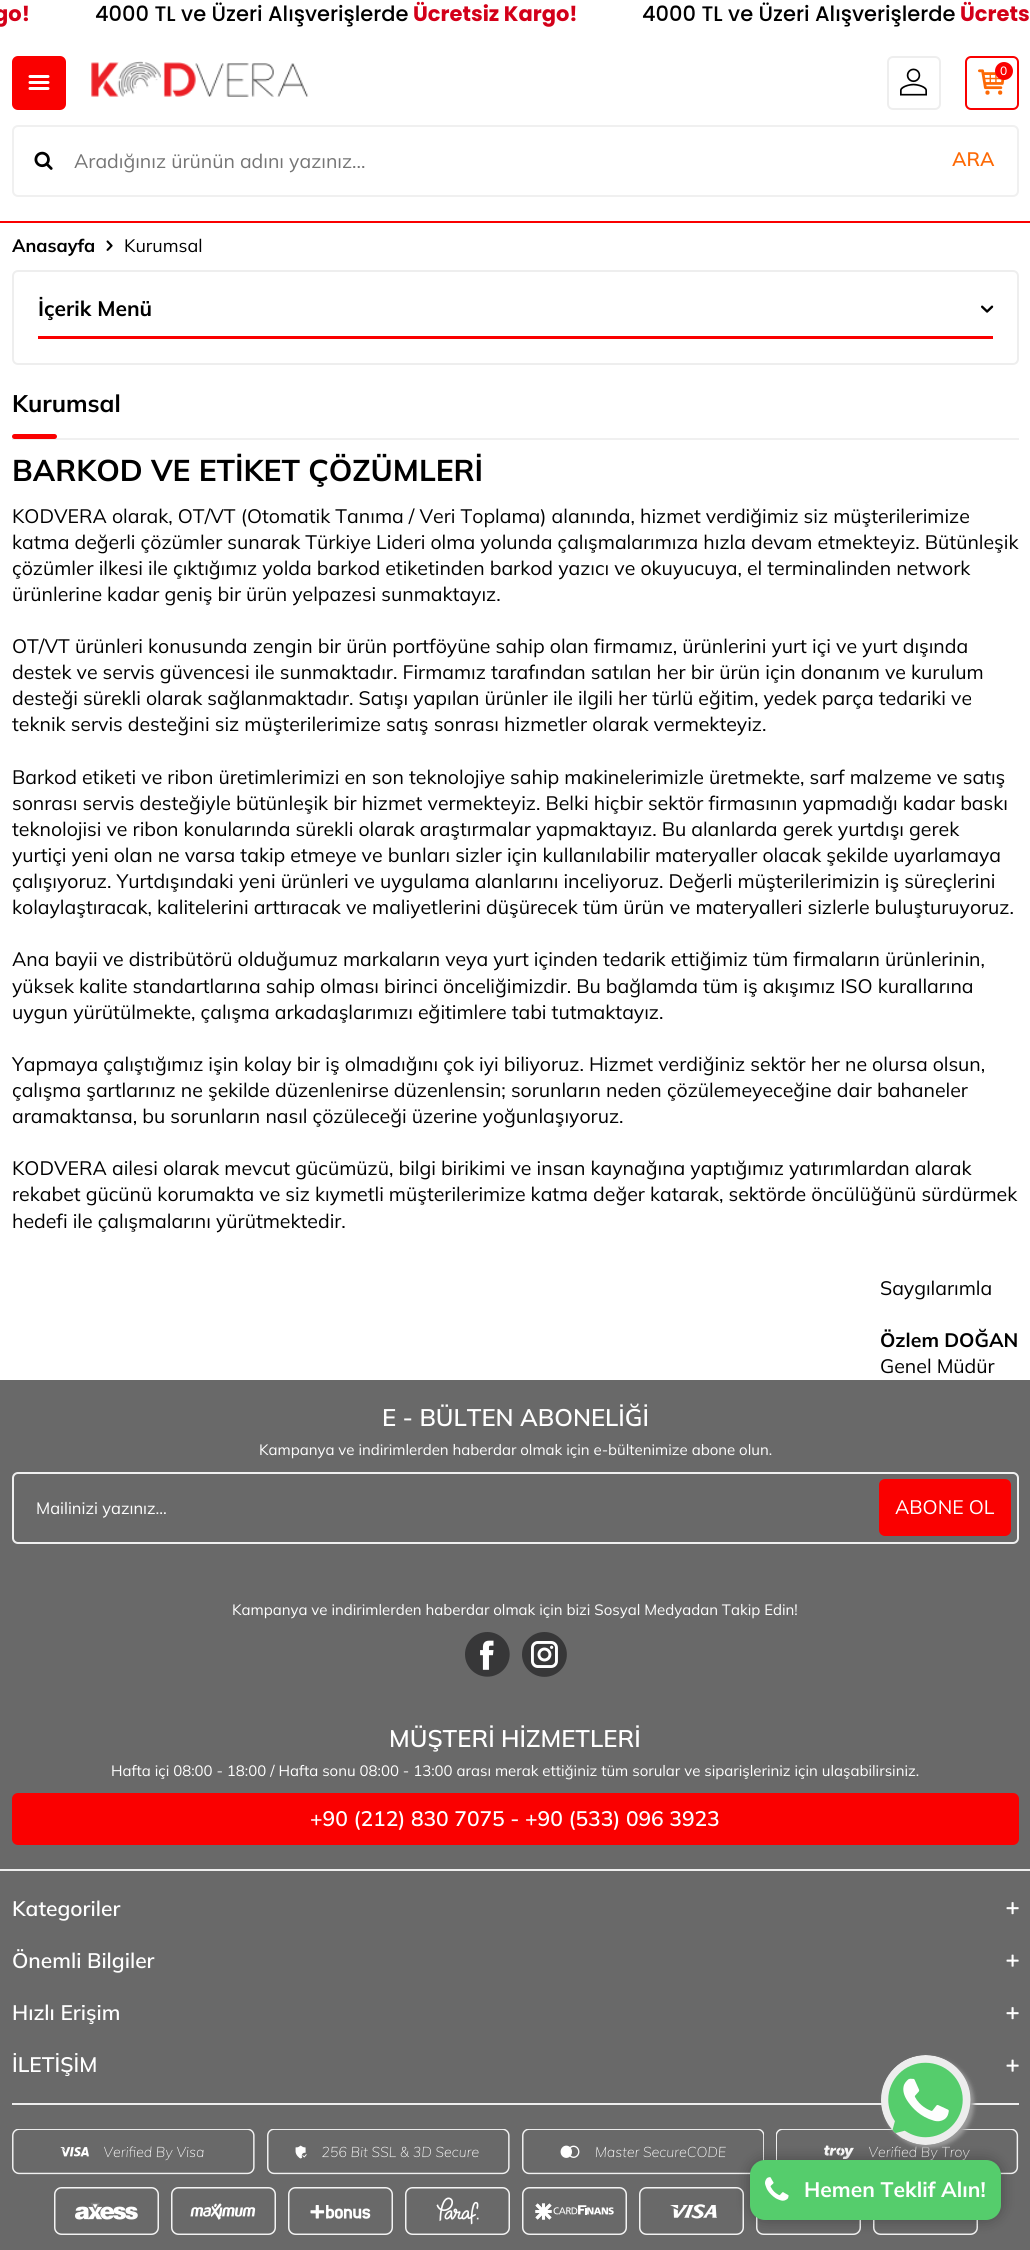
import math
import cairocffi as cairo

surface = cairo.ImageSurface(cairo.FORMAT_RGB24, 1030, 2250)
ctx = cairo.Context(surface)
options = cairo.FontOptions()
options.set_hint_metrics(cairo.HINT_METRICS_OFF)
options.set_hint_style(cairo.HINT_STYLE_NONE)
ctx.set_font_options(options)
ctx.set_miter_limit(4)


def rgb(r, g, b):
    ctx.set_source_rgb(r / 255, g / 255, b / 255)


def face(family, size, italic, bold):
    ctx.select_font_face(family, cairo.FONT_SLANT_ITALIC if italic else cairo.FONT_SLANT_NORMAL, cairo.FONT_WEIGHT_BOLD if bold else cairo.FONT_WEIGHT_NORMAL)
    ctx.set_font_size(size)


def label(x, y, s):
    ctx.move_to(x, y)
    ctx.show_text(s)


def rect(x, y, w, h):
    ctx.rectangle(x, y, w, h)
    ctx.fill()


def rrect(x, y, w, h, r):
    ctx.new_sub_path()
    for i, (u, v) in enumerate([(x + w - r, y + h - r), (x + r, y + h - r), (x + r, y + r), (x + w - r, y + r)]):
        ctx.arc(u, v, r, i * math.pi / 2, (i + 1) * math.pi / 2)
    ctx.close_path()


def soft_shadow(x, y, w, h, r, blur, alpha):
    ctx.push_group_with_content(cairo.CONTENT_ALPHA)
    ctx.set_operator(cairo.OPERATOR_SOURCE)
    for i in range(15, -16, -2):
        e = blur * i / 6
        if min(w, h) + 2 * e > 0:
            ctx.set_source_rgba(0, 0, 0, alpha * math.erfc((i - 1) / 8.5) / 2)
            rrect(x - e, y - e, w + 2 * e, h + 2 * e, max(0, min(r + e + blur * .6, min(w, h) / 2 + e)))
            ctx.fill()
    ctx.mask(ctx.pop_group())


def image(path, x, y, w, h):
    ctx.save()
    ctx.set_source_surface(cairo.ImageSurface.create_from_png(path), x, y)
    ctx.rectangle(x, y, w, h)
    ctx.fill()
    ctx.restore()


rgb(255, 255, 255)
ctx.paint()
face('Poppins', 21, 0, 1)
rgb(211, 0, 25)
label(-6, 21, 'go!')
face('Poppins Medium', 21, 0, 0)
rgb(0, 0, 0)
label(95, 21, '4000 TL ve Üzeri Alışverişlerde')
face('Poppins', 21, 0, 1)
rgb(211, 0, 25)
label(413, 21, 'Ücretsiz Kargo!')
face('Poppins Medium', 21, 0, 0)
rgb(0, 0, 0)
label(642, 21, '4000 TL ve Üzeri Alışverişlerde')
face('Poppins', 21, 0, 1)
rgb(211, 0, 25)
label(960, 21, 'Ücrets')
rgb(250, 0, 0)
rect(0, 221, 1030, 2)
rrect(12, 56, 54, 54, 6)
ctx.fill()
image('image0.png', 28, 75, 22, 15)
image('image1.png', 91, 61, 218, 36)
rrect(888, 57, 52, 52, 5)
rgb(238, 238, 238)
ctx.stroke()
image('image2.png', 900, 68, 27, 28)
rrect(966, 57, 52, 52, 5)
rgb(250, 0, 0)
ctx.stroke()
image('image3.png', 978, 69, 27, 26)
ctx.arc(1004, 71, 9, 0, 2 * math.pi)
ctx.fill()
face('Mulish Medium', 12, 0, 0)
rgb(255, 255, 255)
label(1000, 75, '0')
rrect(13, 126, 1005, 70, 5)
rgb(240, 240, 240)
ctx.stroke()
image('image4.png', 34, 151, 19, 19)
face('Mulish', 19.5, 0, 0)
rgb(117, 117, 117)
label(74, 168, 'Aradığınız ürünün adını yazınız...')
face('Mulish SemiBold', 19.5, 0, 0)
rgb(253, 105, 5)
label(952, 166, 'ARA')
face('Mulish', 18, 0, 1)
rgb(0, 0, 0)
label(12, 252, 'Anasayfa')
image('image5.png', 106, 240, 7, 11)
face('Mulish', 18, 0, 0)
label(124, 252, 'Kurumsal')
rrect(13, 271, 1005, 93, 5)
rgb(238, 238, 238)
ctx.stroke()
rgb(250, 0, 0)
rect(38, 336, 955, 3)
face('Mulish', 21, 0, 1)
rgb(0, 0, 0)
label(38, 316, 'İçerik Menü')
image('image6.png', 981, 305, 13, 8)
rgb(240, 240, 240)
rect(12, 438, 1007, 2)
face('Mulish', 24, 0, 1)
rgb(0, 0, 0)
label(12, 412, 'Kurumsal')
rgb(250, 0, 0)
rrect(12, 434, 45, 5, 2.5)
ctx.fill()
face('Mulish', 30, 0, 1)
rgb(0, 0, 0)
label(12, 481, 'BARKOD VE ETİKET ÇÖZÜMLERİ')
face('Mulish', 19.5, 0, 0)
label(12, 523, 'KODVERA olarak, OT/VT (Otomatik Tanıma / Veri Toplama) alanında, hizmet verdiğimiz siz müşterilerimize')
label(12, 549, 'katma değerli çözümler sunarak Türkiye Lideri olma yolunda çalışmalarımıza hızla devam etmekteyiz. Bütünleşik')
label(12, 575, 'çözümler ilkesi ile çıktığımız yolda barkod etiketinden barkod yazıcı ve okuyucuya, el terminalinden network')
label(12, 601, 'ürünlerine kadar geniş bir ürün yelpazesi sunmaktayız.')
label(12, 653, 'OT/VT ürünleri konusunda zengin bir ürün portföyüne sahip olan firmamız, ürünlerini yurt içi ve yurt dışında')
label(12, 679, 'destek ve servis güvencesi ile sunmaktadır. Firmamız tarafından satılan her bir ürün için donanım ve kurulum')
label(12, 705, 'desteği sürekli olarak sağlanmaktadır. Satışı yapılan ürünler ile ilgili her türlü eğitim, yedek parça tedariki ve')
label(12, 731, 'teknik servis desteğini siz müşterilerimize satış sonrası hizmetler olarak vermekteyiz.')
label(12, 784, 'Barkod etiketi ve ribon üretimlerimizi en son teknolojiye sahip makinelerimizle üretmekte, sarf malzeme ve satış')
label(12, 810, 'sonrası servis desteğiyle bütünleşik bir hizmet vermekteyiz. Belki hiçbir sektör firmasının yapmadığı kadar baskı')
label(12, 836, 'teknolojisi ve ribon konularında sürekli olarak araştırmalar yapmaktayız. Bu alanlarda gerek yurtdışı gerek')
label(12, 862, 'yurtiçi yeni olan ne varsa takip etmeye ve bunları sizler için kullanılabilir materyaller olacak şekilde uyarlamaya')
label(12, 888, 'çalışıyoruz. Yurtdışındaki yeni ürünleri ve uygulama alanlarını inceliyoruz. Değerli müşterilerimizin iş süreçlerini')
label(12, 914, 'kolaylaştıracak, kalitelerini arttıracak ve maliyetlerini düşürecek tüm ürün ve materyalleri sizlerle buluşturuyoruz.')
label(12, 966, 'Ana bayii ve distribütörü olduğumuz markaların veya yurt içinden tedarik ettiğimiz tüm firmaların ürünlerinin,')
label(12, 993, 'yüksek kalite standartlarına sahip olması birinci önceliğimizdir. Bu bağlamda tüm iş akışımız ISO kurallarına')
label(12, 1019, 'uygun yürütülmekte, çalışma arkadaşlarımızı eğitimlere tabi tutmaktayız.')
label(12, 1071, 'Yapmaya çalıştığımız işin kolay bir iş olmadığını çok iyi biliyoruz. Hizmet verdiğiniz sektör her ne olursa olsun,')
label(12, 1097, 'çalışma şartlarınız ne şekilde düzenlenirse düzenlensin; sorunların neden çözülemeyeceğine dair bahaneler')
label(12, 1123, 'aramaktansa, bu sorunların nasıl çözüleceği üzerine yoğunlaşıyoruz.')
label(12, 1175, 'KODVERA ailesi olarak mevcut gücümüzü, bilgi birikimi ve insan kaynağına yaptığımız yatırımlardan alarak')
label(12, 1201, 'rekabet gücünü korumakta ve siz kıymetli müşterilerimize katma değer katarak, sektörde öncülüğünü sürdürmek')
label(12, 1228, 'hedefi ile çalışmalarını yürütmektedir.')
label(880, 1295, 'Saygılarımla')
face('Mulish', 19.5, 0, 1)
label(880, 1347, 'Özlem DOĞAN')
face('Mulish', 19.5, 0, 0)
label(880, 1373, 'Genel Müdür')
rgb(105, 105, 105)
rect(0, 1380, 1030, 870)
rgb(238, 238, 238)
rect(0, 1869, 1030, 2)
face('Mulish SemiBold', 24, 0, 0)
rgb(255, 255, 255)
label(382, 1426, 'E - BÜLTEN ABONELİĞİ')
face('Mulish', 15, 0, 0)
label(259, 1455, 'Kampanya ve indirimlerden haberdar olmak için e-bültenimize abone olun.')
rrect(13, 1473, 1005, 70, 5)
rgb(240, 240, 240)
ctx.stroke()
face('Mulish', 16.5, 0, 0)
rgb(255, 255, 255)
label(36, 1514, 'Mailinizi yazınız...')
rgb(250, 0, 0)
rrect(880, 1480, 130, 55, 5)
ctx.fill_preserve()
ctx.stroke()
face('Mulish', 19.5, 0, 0)
rgb(255, 255, 255)
label(895, 1514, 'ABONE OL')
face('Mulish', 15, 0, 0)
label(232, 1615, 'Kampanya ve indirimlerden haberdar olmak için bizi Sosyal Medyadan Takip Edin!')
image('image7.png', 465, 1632, 45, 45)
image('image8.png', 522, 1632, 45, 45)
face('Mulish SemiBold', 24, 0, 0)
label(389, 1747, 'MÜŞTERİ HİZMETLERİ')
face('Mulish', 15, 0, 0)
label(111, 1776, 'Hafta içi 08:00 - 18:00 / Hafta sonu 08:00 - 13:00 arası merak ettiğiniz tüm sorular ve siparişleriniz için ulaşabilirsiniz.')
rgb(250, 0, 0)
rrect(12, 1793, 1007, 52, 6)
ctx.fill()
face('Mulish SemiBold', 21, 0, 0)
rgb(255, 255, 255)
label(310, 1826, '+90 (212) 830 7075 - +90 (533) 096 3923')
rgb(238, 238, 238)
rect(12, 2103, 1007, 2)
rgb(255, 255, 255)
label(12, 1916, 'Kategoriler')
image('image9.png', 1006, 1902, 13, 13)
label(12, 1968, 'Önemli Bilgiler')
image('image10.png', 1006, 1954, 13, 13)
label(12, 2020, 'Hızlı Erişim')
image('image9.png', 1006, 2007, 13, 13)
label(12, 2072, 'İLETİŞİM')
image('image10.png', 1006, 2059, 13, 13)
image('image15.png', 776, 2129, 243, 46)
rgb(153, 153, 153)
soft_shadow(884, 2058, 90, 90, 45, 2, 1)
image('image14.png', 522, 2129, 242, 46)
image('image21.png', 639, 2187, 105, 48)
image('image22.png', 756, 2217, 105, 18)
image('image23.png', 873, 2220, 105, 15)
rgb(0, 0, 0)
soft_shadow(750, 2160, 251, 60, 15, 7.5, 0.3)
image('image11.png', 881, 2055, 90, 90)
image('image12.png', 12, 2129, 243, 46)
image('image13.png', 267, 2129, 243, 46)
image('image16.png', 54, 2187, 105, 48)
image('image17.png', 171, 2187, 105, 48)
image('image18.png', 288, 2187, 105, 48)
image('image19.png', 405, 2187, 105, 48)
image('image20.png', 522, 2187, 105, 48)
rgb(85, 205, 108)
rrect(750, 2160, 251, 60, 15)
ctx.fill()
image('image24.png', 765, 2177, 24, 24)
face('Mulish', 21, 0, 1)
rgb(255, 255, 255)
label(804, 2197, 'Hemen Teklif Alın!')
surface.write_to_png('render.png')
